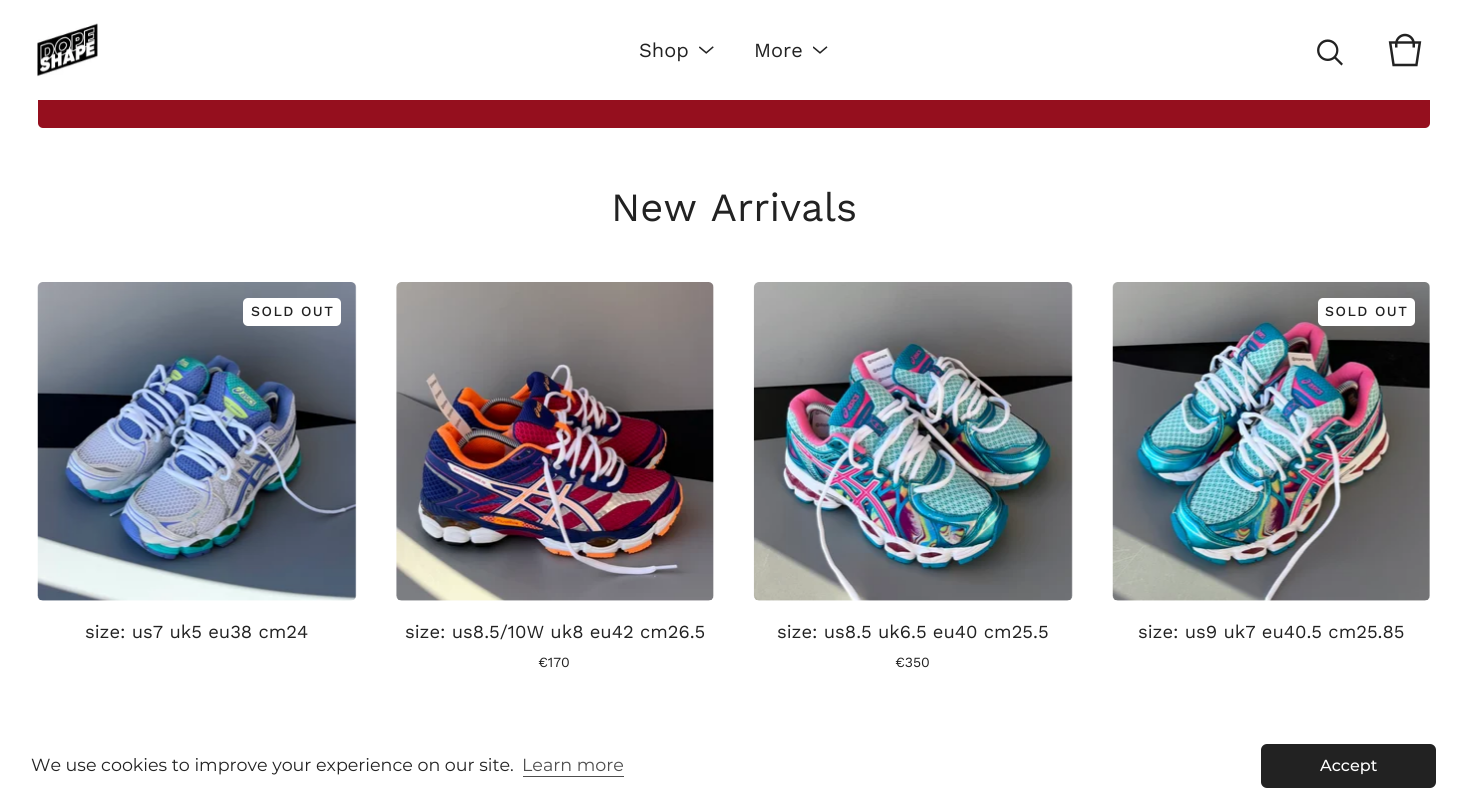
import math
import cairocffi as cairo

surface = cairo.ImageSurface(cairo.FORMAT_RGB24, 1467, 805)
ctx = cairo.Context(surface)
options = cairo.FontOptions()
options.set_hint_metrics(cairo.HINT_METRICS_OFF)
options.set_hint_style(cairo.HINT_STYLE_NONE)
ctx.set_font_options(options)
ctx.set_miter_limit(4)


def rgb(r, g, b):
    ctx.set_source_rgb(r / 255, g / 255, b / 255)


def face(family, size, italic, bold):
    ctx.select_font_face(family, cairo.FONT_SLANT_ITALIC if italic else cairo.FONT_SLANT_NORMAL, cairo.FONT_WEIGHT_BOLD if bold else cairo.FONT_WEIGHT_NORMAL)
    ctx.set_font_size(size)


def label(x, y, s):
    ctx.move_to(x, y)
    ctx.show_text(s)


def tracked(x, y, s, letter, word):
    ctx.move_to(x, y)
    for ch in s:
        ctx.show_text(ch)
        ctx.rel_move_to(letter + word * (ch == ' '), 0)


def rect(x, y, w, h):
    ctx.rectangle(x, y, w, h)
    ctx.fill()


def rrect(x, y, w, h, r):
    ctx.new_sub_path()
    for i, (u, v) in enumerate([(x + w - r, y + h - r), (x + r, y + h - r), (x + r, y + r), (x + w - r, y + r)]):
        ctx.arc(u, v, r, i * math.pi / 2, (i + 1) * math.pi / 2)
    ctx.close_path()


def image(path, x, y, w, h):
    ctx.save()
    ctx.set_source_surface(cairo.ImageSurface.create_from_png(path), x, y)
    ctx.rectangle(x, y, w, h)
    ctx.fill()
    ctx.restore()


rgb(255, 255, 255)
ctx.paint()
rgb(149, 15, 30)
rrect(38, 58, 1392, 70, 5)
ctx.fill()
rgb(255, 255, 255)
rect(38, 58, 1392, 42)
image('image0.png', 37, 23, 61, 54)
face('Work Sans', 20, 0, 0)
rgb(34, 34, 34)
label(639, 57, 'Shop')
image('image1.png', 699, 46, 15, 8)
label(754, 57, 'More')
image('image2.png', 813, 46, 15, 8)
image('image3.png', 1317, 39, 26, 27)
image('image4.png', 1388, 33, 34, 34)
face('Work Sans', 40, 0, 0)
label(611, 221, 'New Arrivals')
image('image5.png', 37, 282, 320, 319)
rgb(255, 255, 255)
rrect(243, 298, 98, 28, 5)
ctx.fill()
face('Work Sans Medium', 14, 0, 0)
rgb(34, 34, 34)
tracked(251, 316, 'SOLD OUT', 1.5, 0)
face('Work Sans', 18.4, 0, 0)
label(85, 638, 'size: us7 uk5 eu38 cm24')
image('image6.png', 1112, 282, 318, 319)
rgb(255, 255, 255)
rrect(1318, 298, 97, 28, 5)
ctx.fill()
face('Work Sans Medium', 14, 0, 0)
rgb(34, 34, 34)
tracked(1325, 316, 'SOLD OUT', 1.5, 0)
face('Work Sans', 18.4, 0, 0)
label(1138, 638, 'size: us9 uk7 eu40.5 cm25.85')
image('image7.png', 396, 282, 318, 319)
label(405, 638, 'size: us8.5/10W uk8 eu42 cm26.5')
face('Work Sans', 14, 0, 0)
label(538, 667, '€170')
image('image8.png', 753, 282, 320, 319)
face('Work Sans', 18.4, 0, 0)
label(777, 638, 'size: us8.5 uk6.5 eu40 cm25.5')
face('Work Sans', 14, 0, 0)
label(895, 667, '€350')
face('Montserrat', 17.5, 0, 0)
label(31, 771, 'We use cookies to improve your experience on our site.')
rgb(78, 78, 78)
label(522, 771, 'Learn more')
rect(523, 776, 101, 1)
rgb(34, 34, 34)
rrect(1261, 744, 175, 44, 6)
ctx.fill()
face('Montserrat Medium', 16, 0, 0)
rgb(255, 255, 255)
label(1320, 771, 'Accept')
surface.write_to_png('render.png')
